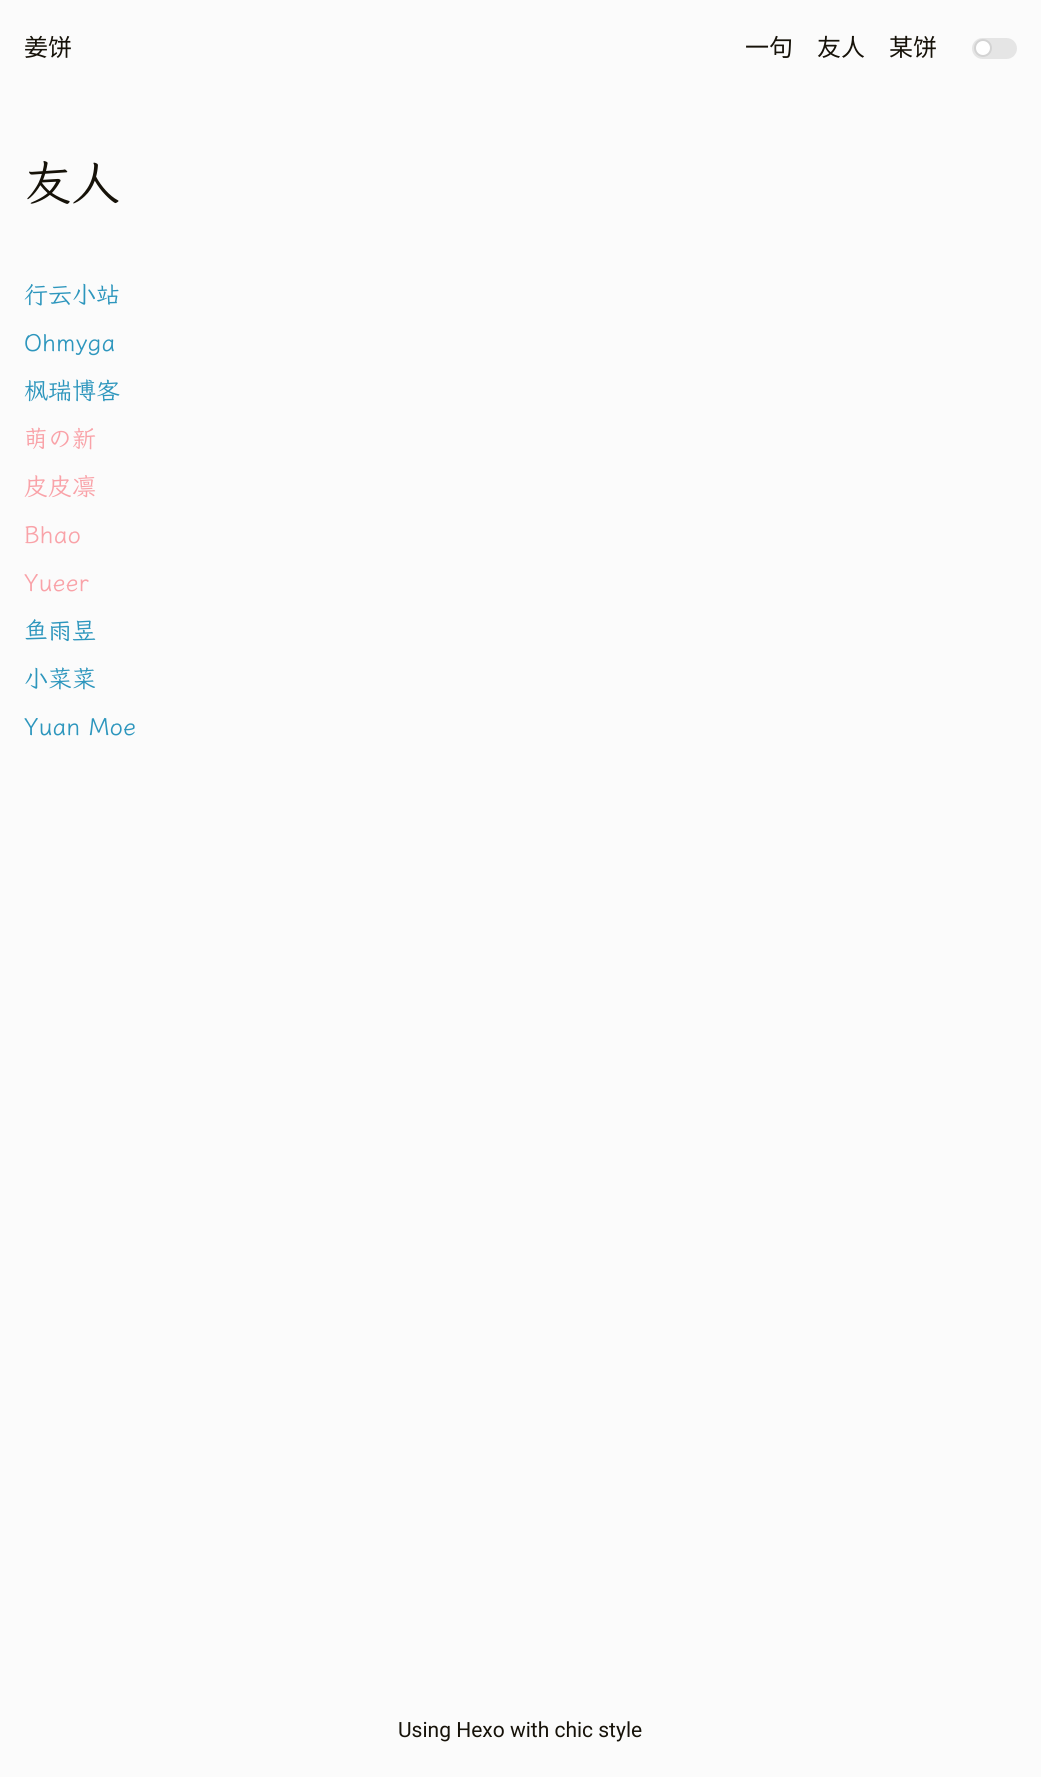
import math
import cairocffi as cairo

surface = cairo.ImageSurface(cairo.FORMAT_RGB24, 1041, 1777)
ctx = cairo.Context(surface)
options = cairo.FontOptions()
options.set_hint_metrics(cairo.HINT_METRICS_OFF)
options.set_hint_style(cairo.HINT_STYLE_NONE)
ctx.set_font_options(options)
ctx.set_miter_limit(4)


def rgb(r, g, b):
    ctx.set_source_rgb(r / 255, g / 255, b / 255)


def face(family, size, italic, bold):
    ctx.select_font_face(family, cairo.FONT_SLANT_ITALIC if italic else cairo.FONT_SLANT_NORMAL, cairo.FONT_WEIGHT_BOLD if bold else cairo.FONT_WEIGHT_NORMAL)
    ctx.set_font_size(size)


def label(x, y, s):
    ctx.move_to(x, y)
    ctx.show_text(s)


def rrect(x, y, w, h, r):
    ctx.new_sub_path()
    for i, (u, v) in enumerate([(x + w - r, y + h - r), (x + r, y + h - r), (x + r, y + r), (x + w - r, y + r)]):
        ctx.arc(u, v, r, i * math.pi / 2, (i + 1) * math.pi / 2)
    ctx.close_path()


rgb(251, 251, 251)
ctx.paint()
face('Noto Sans CJK SC', 24, 0, 0)
rgb(22, 18, 9)
label(24, 56, '姜饼')
label(745, 56, '一句')
label(817, 56, '友人')
label(889, 56, '某饼')
rgb(229, 229, 229)
rrect(972, 38, 45, 21, 10.5)
ctx.fill()
rgb(255, 255, 255)
ctx.arc(983, 48, 8, 0, 2 * math.pi)
ctx.fill_preserve()
rgb(211, 211, 211)
ctx.stroke()
face('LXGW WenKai', 48, 0, 0)
rgb(22, 18, 9)
label(24, 200, '友人')
face('LXGW WenKai', 24, 0, 0)
rgb(45, 150, 189)
label(24, 303, '行云小站')
label(24, 351, 'Ohmyga')
label(24, 399, '枫瑞博客')
rgb(249, 162, 168)
label(24, 447, '萌の新')
label(24, 495, '皮皮凛')
label(24, 543, 'Bhao')
label(24, 591, 'Yueer')
rgb(45, 150, 189)
label(24, 639, '鱼雨昱')
label(24, 687, '小菜菜')
label(24, 735, 'Yuan Moe')
face('Roboto', 21, 0, 0)
rgb(22, 18, 9)
label(398, 1737, 'Using Hexo with chic style')
surface.write_to_png('render.png')
